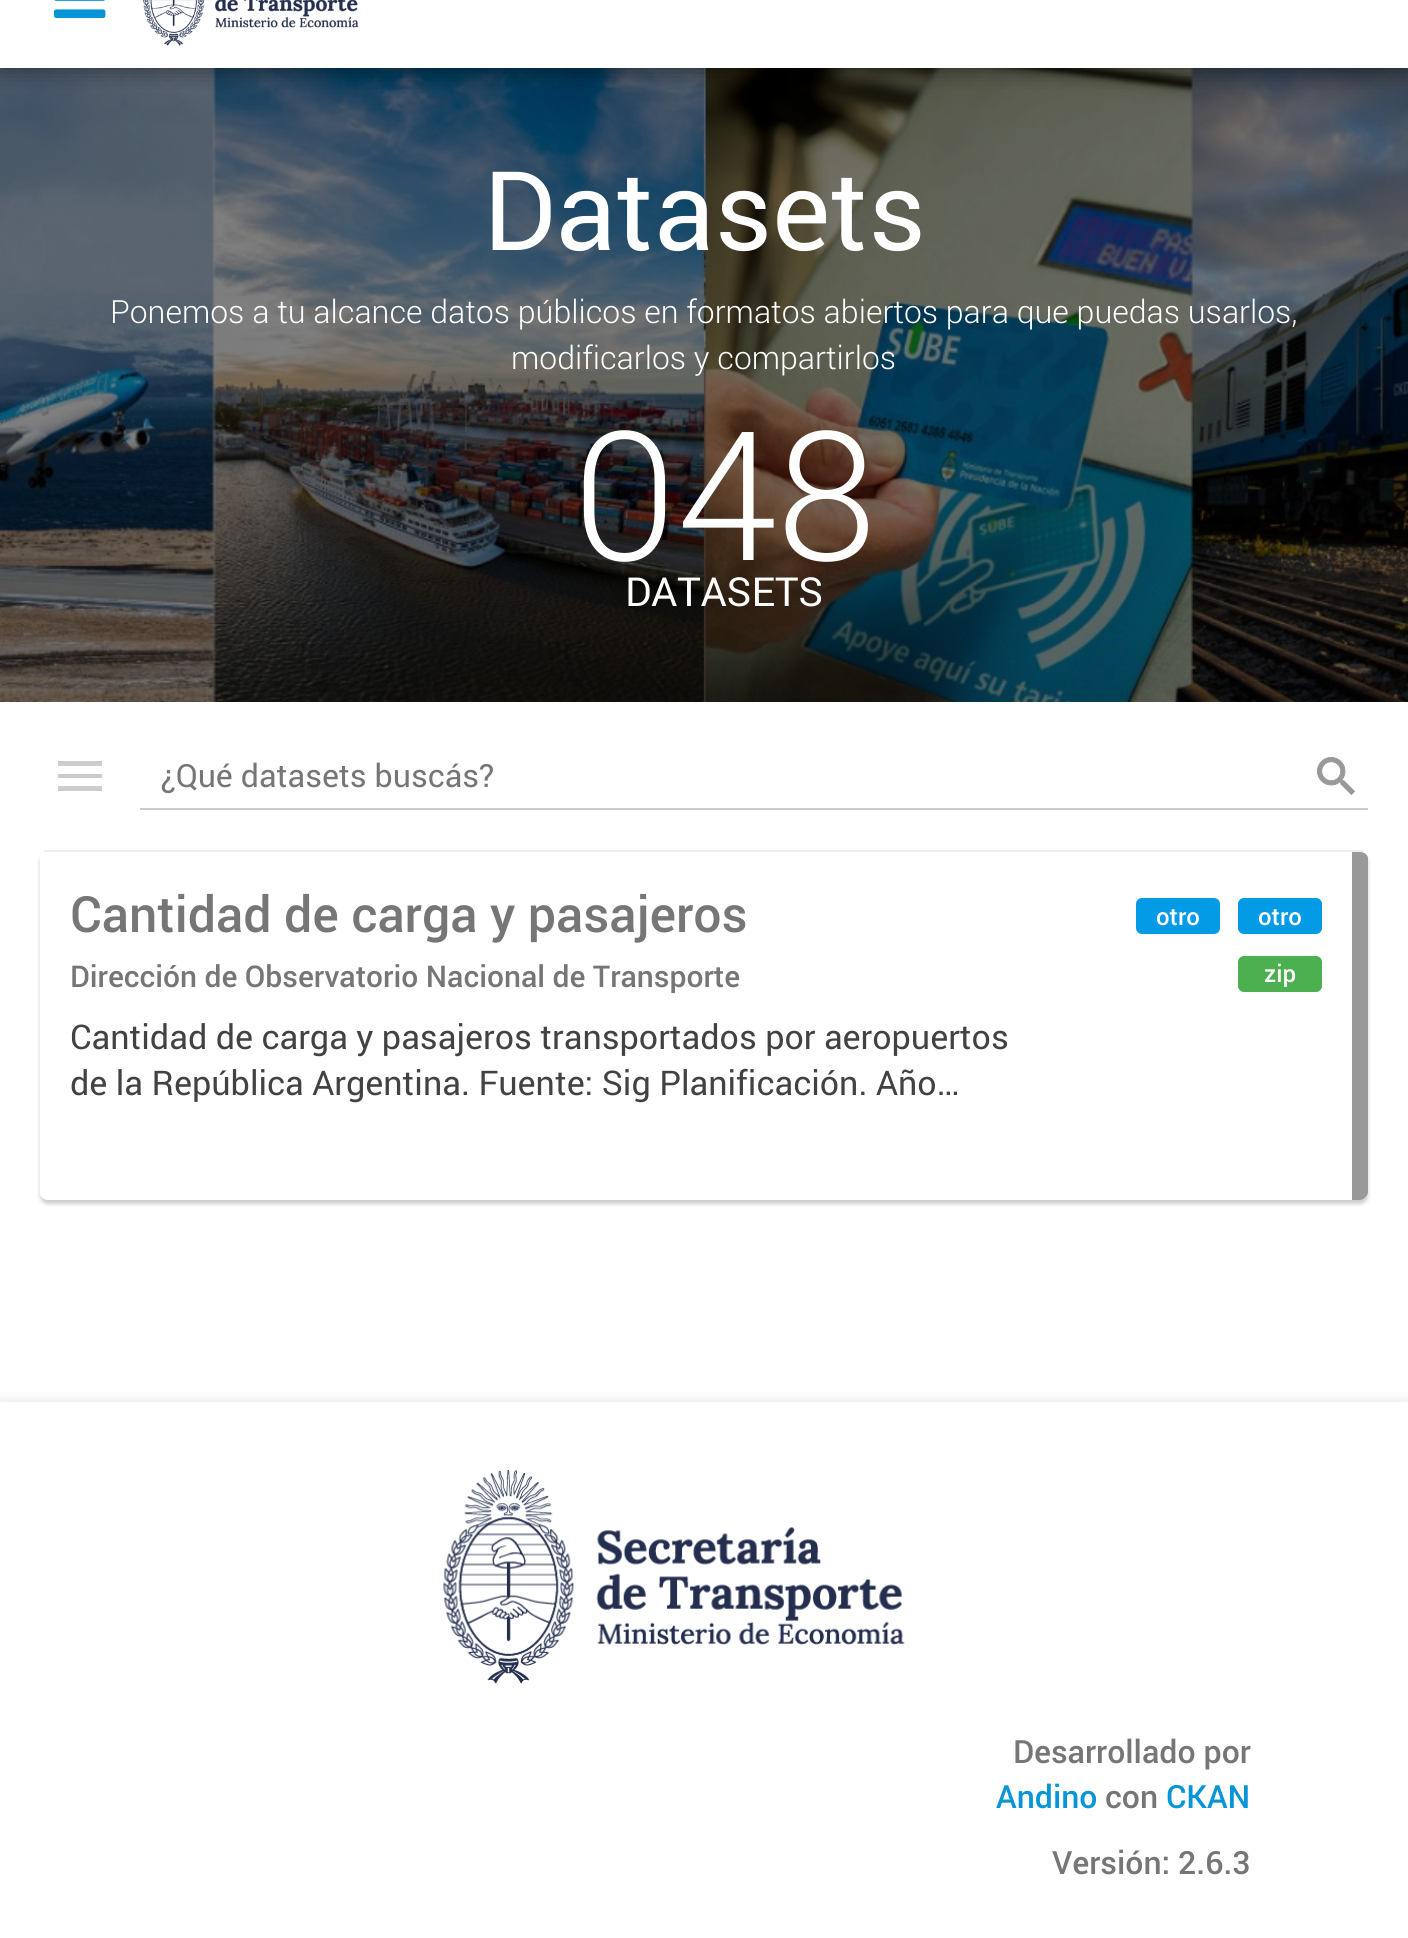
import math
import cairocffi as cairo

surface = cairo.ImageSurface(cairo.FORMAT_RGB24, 1408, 1938)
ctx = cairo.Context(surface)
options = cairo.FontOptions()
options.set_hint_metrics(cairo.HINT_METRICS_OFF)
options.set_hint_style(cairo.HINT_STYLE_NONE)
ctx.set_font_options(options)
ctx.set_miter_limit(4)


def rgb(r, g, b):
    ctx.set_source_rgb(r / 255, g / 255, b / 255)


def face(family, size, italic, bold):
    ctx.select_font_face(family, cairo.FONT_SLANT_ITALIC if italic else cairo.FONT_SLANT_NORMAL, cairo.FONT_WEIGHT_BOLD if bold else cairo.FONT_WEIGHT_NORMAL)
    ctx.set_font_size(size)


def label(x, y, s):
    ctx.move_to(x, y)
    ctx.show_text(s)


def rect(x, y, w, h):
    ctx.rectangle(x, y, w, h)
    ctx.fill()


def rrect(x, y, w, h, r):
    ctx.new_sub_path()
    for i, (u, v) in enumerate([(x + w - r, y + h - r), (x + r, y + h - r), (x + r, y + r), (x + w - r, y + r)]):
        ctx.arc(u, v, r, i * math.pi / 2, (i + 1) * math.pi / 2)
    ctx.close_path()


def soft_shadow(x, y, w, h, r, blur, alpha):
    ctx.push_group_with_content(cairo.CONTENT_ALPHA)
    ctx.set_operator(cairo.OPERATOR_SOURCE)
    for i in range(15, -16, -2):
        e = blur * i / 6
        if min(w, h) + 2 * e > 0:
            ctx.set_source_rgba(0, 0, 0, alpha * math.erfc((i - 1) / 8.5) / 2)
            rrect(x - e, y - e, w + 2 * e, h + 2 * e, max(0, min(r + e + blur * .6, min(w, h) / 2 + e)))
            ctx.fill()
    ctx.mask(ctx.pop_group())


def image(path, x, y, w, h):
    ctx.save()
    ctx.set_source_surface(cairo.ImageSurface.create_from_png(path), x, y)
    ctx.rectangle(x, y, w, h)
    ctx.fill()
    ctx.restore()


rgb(255, 255, 255)
ctx.paint()
image('image2.png', 0, 68, 1408, 634)
ctx.save()
ctx.rectangle(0, 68, 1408, 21)
ctx.clip()
rgb(0, 0, 0)
soft_shadow(0, -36, 1408, 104, 0, 12, 0.5)
ctx.restore()
image('image0.png', 54, 0, 52, 18)
image('image1.png', 143, 0, 216, 46)
face('Roboto', 110, 0, 0)
rgb(255, 255, 255)
label(483, 250, 'Datasets')
face('Roboto Light', 32, 0, 0)
label(110, 323, 'Ponemos a tu alcance datos públicos en formatos abiertos para que puedas usarlos,')
label(511, 369, 'modificarlos y compartirlos')
face('Roboto Light', 180, 0, 0)
label(572, 560, '048')
face('Roboto', 40, 0, 0)
label(625, 606, 'DATASETS')
rgb(204, 204, 204)
ctx.new_path()
ctx.move_to(58, 791)
ctx.line_to(102, 791)
ctx.line_to(102, 786)
ctx.line_to(58, 786)
ctx.close_path()
ctx.move_to(58, 778)
ctx.line_to(102, 778)
ctx.line_to(102, 774)
ctx.line_to(58, 774)
ctx.close_path()
ctx.move_to(58, 761)
ctx.line_to(58, 766)
ctx.line_to(102, 766)
ctx.line_to(102, 761)
ctx.close_path()
ctx.fill()
rect(140, 808, 1228, 2)
face('Roboto', 32, 0, 0)
rgb(118, 118, 118)
label(160, 787, '¿Qué datasets buscás?')
image('image3.png', 1317, 757, 38, 38)
ctx.save()
ctx.set_fill_rule(cairo.FILL_RULE_EVEN_ODD)
ctx.new_path()
ctx.move_to(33, 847)
ctx.line_to(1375, 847)
ctx.line_to(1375, 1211)
ctx.line_to(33, 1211)
ctx.close_path()
ctx.move_to(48, 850)
ctx.line_to(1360, 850)
ctx.curve_to(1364.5, 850, 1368, 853.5, 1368, 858)
ctx.line_to(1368, 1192)
ctx.curve_to(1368, 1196.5, 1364.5, 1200, 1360, 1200)
ctx.line_to(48, 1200)
ctx.curve_to(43.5, 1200, 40, 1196.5, 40, 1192)
ctx.line_to(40, 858)
ctx.curve_to(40, 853.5, 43.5, 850, 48, 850)
ctx.close_path()
ctx.clip()
rgb(0, 0, 0)
soft_shadow(40, 854, 1328, 350, 8, 2, 0.2)
ctx.restore()
rgb(238, 238, 238)
rect(44, 850, 1320, 2)
rgb(153, 153, 153)
ctx.new_path()
ctx.move_to(1352, 852)
ctx.line_to(1352, 1200)
ctx.line_to(1360, 1200)
ctx.curve_to(1364, 1200, 1368, 1196, 1368, 1192)
ctx.line_to(1368, 858)
ctx.curve_to(1368, 855, 1364, 852, 1360, 852)
ctx.close_path()
ctx.fill()
face('Roboto Medium', 50, 0, 0)
rgb(118, 118, 118)
label(70, 932, 'Cantidad de carga y pasajeros')
face('Roboto Medium', 30, 0, 0)
label(70, 987, 'Dirección de Observatorio Nacional de Transporte')
face('Roboto', 34, 0, 0)
rgb(66, 66, 66)
label(70, 1049, 'Cantidad de carga y pasajeros transportados por aeropuertos')
label(70, 1095, 'de la República Argentina. Fuente: Sig Planificación. Año…')
rgb(3, 155, 229)
rrect(1136, 898, 84, 36, 6)
ctx.fill()
face('Roboto Medium', 24, 0, 0)
rgb(255, 255, 255)
label(1156, 925, 'otro')
rgb(3, 155, 229)
rrect(1238, 898, 84, 36, 6)
ctx.fill()
rgb(255, 255, 255)
label(1258, 925, 'otro')
rgb(76, 175, 80)
rrect(1238, 956, 84, 36, 6)
ctx.fill()
rgb(255, 255, 255)
label(1264, 982, 'zip')
ctx.save()
ctx.set_fill_rule(cairo.FILL_RULE_EVEN_ODD)
ctx.new_path()
ctx.move_to(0, 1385)
ctx.line_to(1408, 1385)
ctx.line_to(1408, 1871)
ctx.line_to(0, 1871)
ctx.close_path()
ctx.move_to(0, 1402)
ctx.line_to(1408, 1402)
ctx.line_to(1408, 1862)
ctx.line_to(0, 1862)
ctx.close_path()
ctx.clip()
rgb(220, 220, 220)
soft_shadow(0, 1398, 1408, 460, 0, 4, 0.5)
ctx.restore()
image('image4.png', 443, 1470, 462, 214)
face('Roboto Medium', 32, 0, 0)
rgb(118, 118, 118)
label(1013, 1763, 'Desarrollado por')
rgb(6, 149, 214)
label(996, 1808, 'Andino')
rgb(118, 118, 118)
label(1105, 1808, 'con')
rgb(6, 149, 214)
label(1166, 1808, 'CKAN')
rgb(118, 118, 118)
label(1052, 1874, 'Versión: 2.6.3')
surface.write_to_png('render.png')
